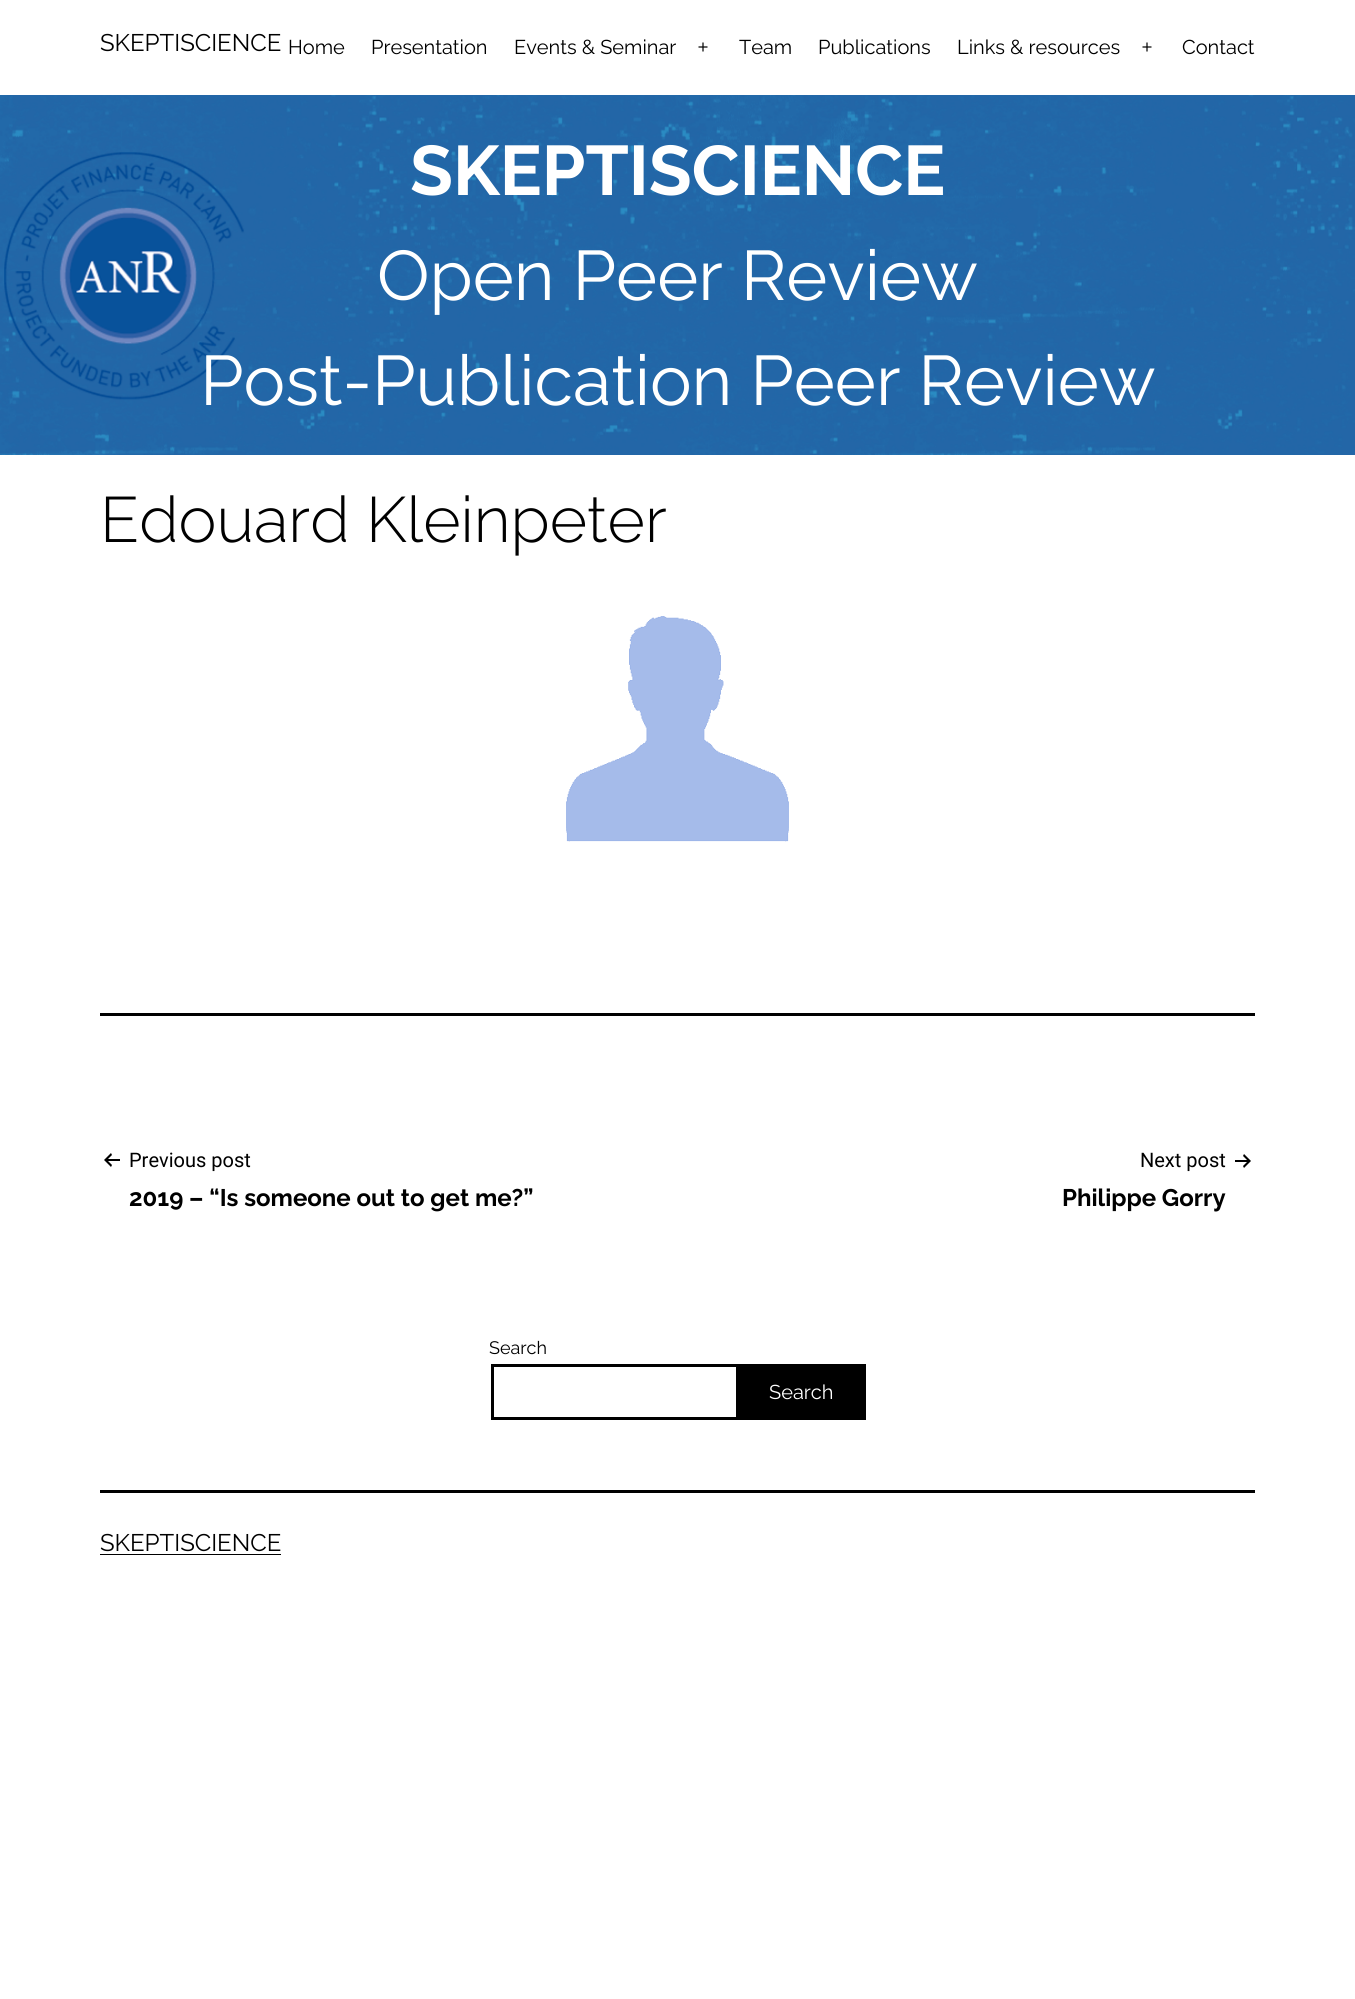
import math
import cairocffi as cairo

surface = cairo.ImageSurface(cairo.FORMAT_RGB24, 1355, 1999)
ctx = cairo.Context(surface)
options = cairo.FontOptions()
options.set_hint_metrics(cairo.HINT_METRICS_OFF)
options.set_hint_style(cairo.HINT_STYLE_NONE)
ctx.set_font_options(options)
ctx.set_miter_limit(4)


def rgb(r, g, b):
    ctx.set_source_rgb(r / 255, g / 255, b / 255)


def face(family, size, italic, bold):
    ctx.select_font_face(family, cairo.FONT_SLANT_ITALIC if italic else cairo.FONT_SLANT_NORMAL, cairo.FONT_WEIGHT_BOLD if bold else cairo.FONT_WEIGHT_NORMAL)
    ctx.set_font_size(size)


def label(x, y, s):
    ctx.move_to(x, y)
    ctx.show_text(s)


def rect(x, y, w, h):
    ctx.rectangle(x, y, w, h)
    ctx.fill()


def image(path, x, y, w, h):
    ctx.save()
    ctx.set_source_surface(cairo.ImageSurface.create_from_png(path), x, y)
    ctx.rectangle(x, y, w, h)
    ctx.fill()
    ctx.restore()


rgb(255, 255, 255)
ctx.paint()
face('Raleway', 24, 0, 0)
rgb(0, 0, 0)
label(100, 51, 'SKEPTISCIENCE')
face('Raleway', 20, 0, 0)
label(288, 54, 'Home')
label(371, 54, 'Presentation')
label(514, 54, 'Events & Seminar')
image('image0.png', 698, 42, 10, 10)
label(739, 54, 'Team')
label(818, 54, 'Publications')
label(957, 54, 'Links & resources')
image('image0.png', 1142, 42, 10, 10)
label(1182, 54, 'Contact')
image('image1.png', 0, 95, 1355, 360)
face('Raleway', 70, 0, 1)
rgb(255, 255, 255)
label(410, 195, 'SKEPTISCIENCE')
face('Raleway', 70, 0, 0)
label(377, 300, 'Open Peer Review')
label(200, 405, 'Post-Publication Peer Review')
face('Raleway Light', 64, 0, 0)
rgb(0, 0, 0)
label(100, 542, 'Edouard Kleinpeter')
image('image2.png', 566, 616, 223, 226)
rect(100, 1013, 1155, 3)
image('image3.png', 104, 1153, 16, 14)
face('Roboto', 20, 0, 0)
label(129, 1167, 'Previous post')
face('Raleway', 24, 0, 1)
label(129, 1206, '2019 – “Is someone out to get me?”')
face('Roboto', 20, 0, 0)
label(1140, 1167, 'Next post')
image('image4.png', 1235, 1154, 16, 14)
face('Raleway', 24, 0, 1)
label(1062, 1206, 'Philippe Gorry')
face('Raleway', 18, 0, 0)
label(489, 1354, 'Search')
ctx.rectangle(492.5, 1365.5, 245, 53)
ctx.set_line_width(3)
ctx.stroke()
rect(739, 1364, 127, 56)
face('Raleway', 20, 0, 0)
rgb(255, 255, 255)
label(769, 1399, 'Search')
rgb(0, 0, 0)
rect(100, 1490, 1155, 3)
face('Raleway', 24, 0, 0)
label(100, 1551, 'SKEPTISCIENCE')
rect(100, 1554, 181, 1)
surface.write_to_png('render.png')
